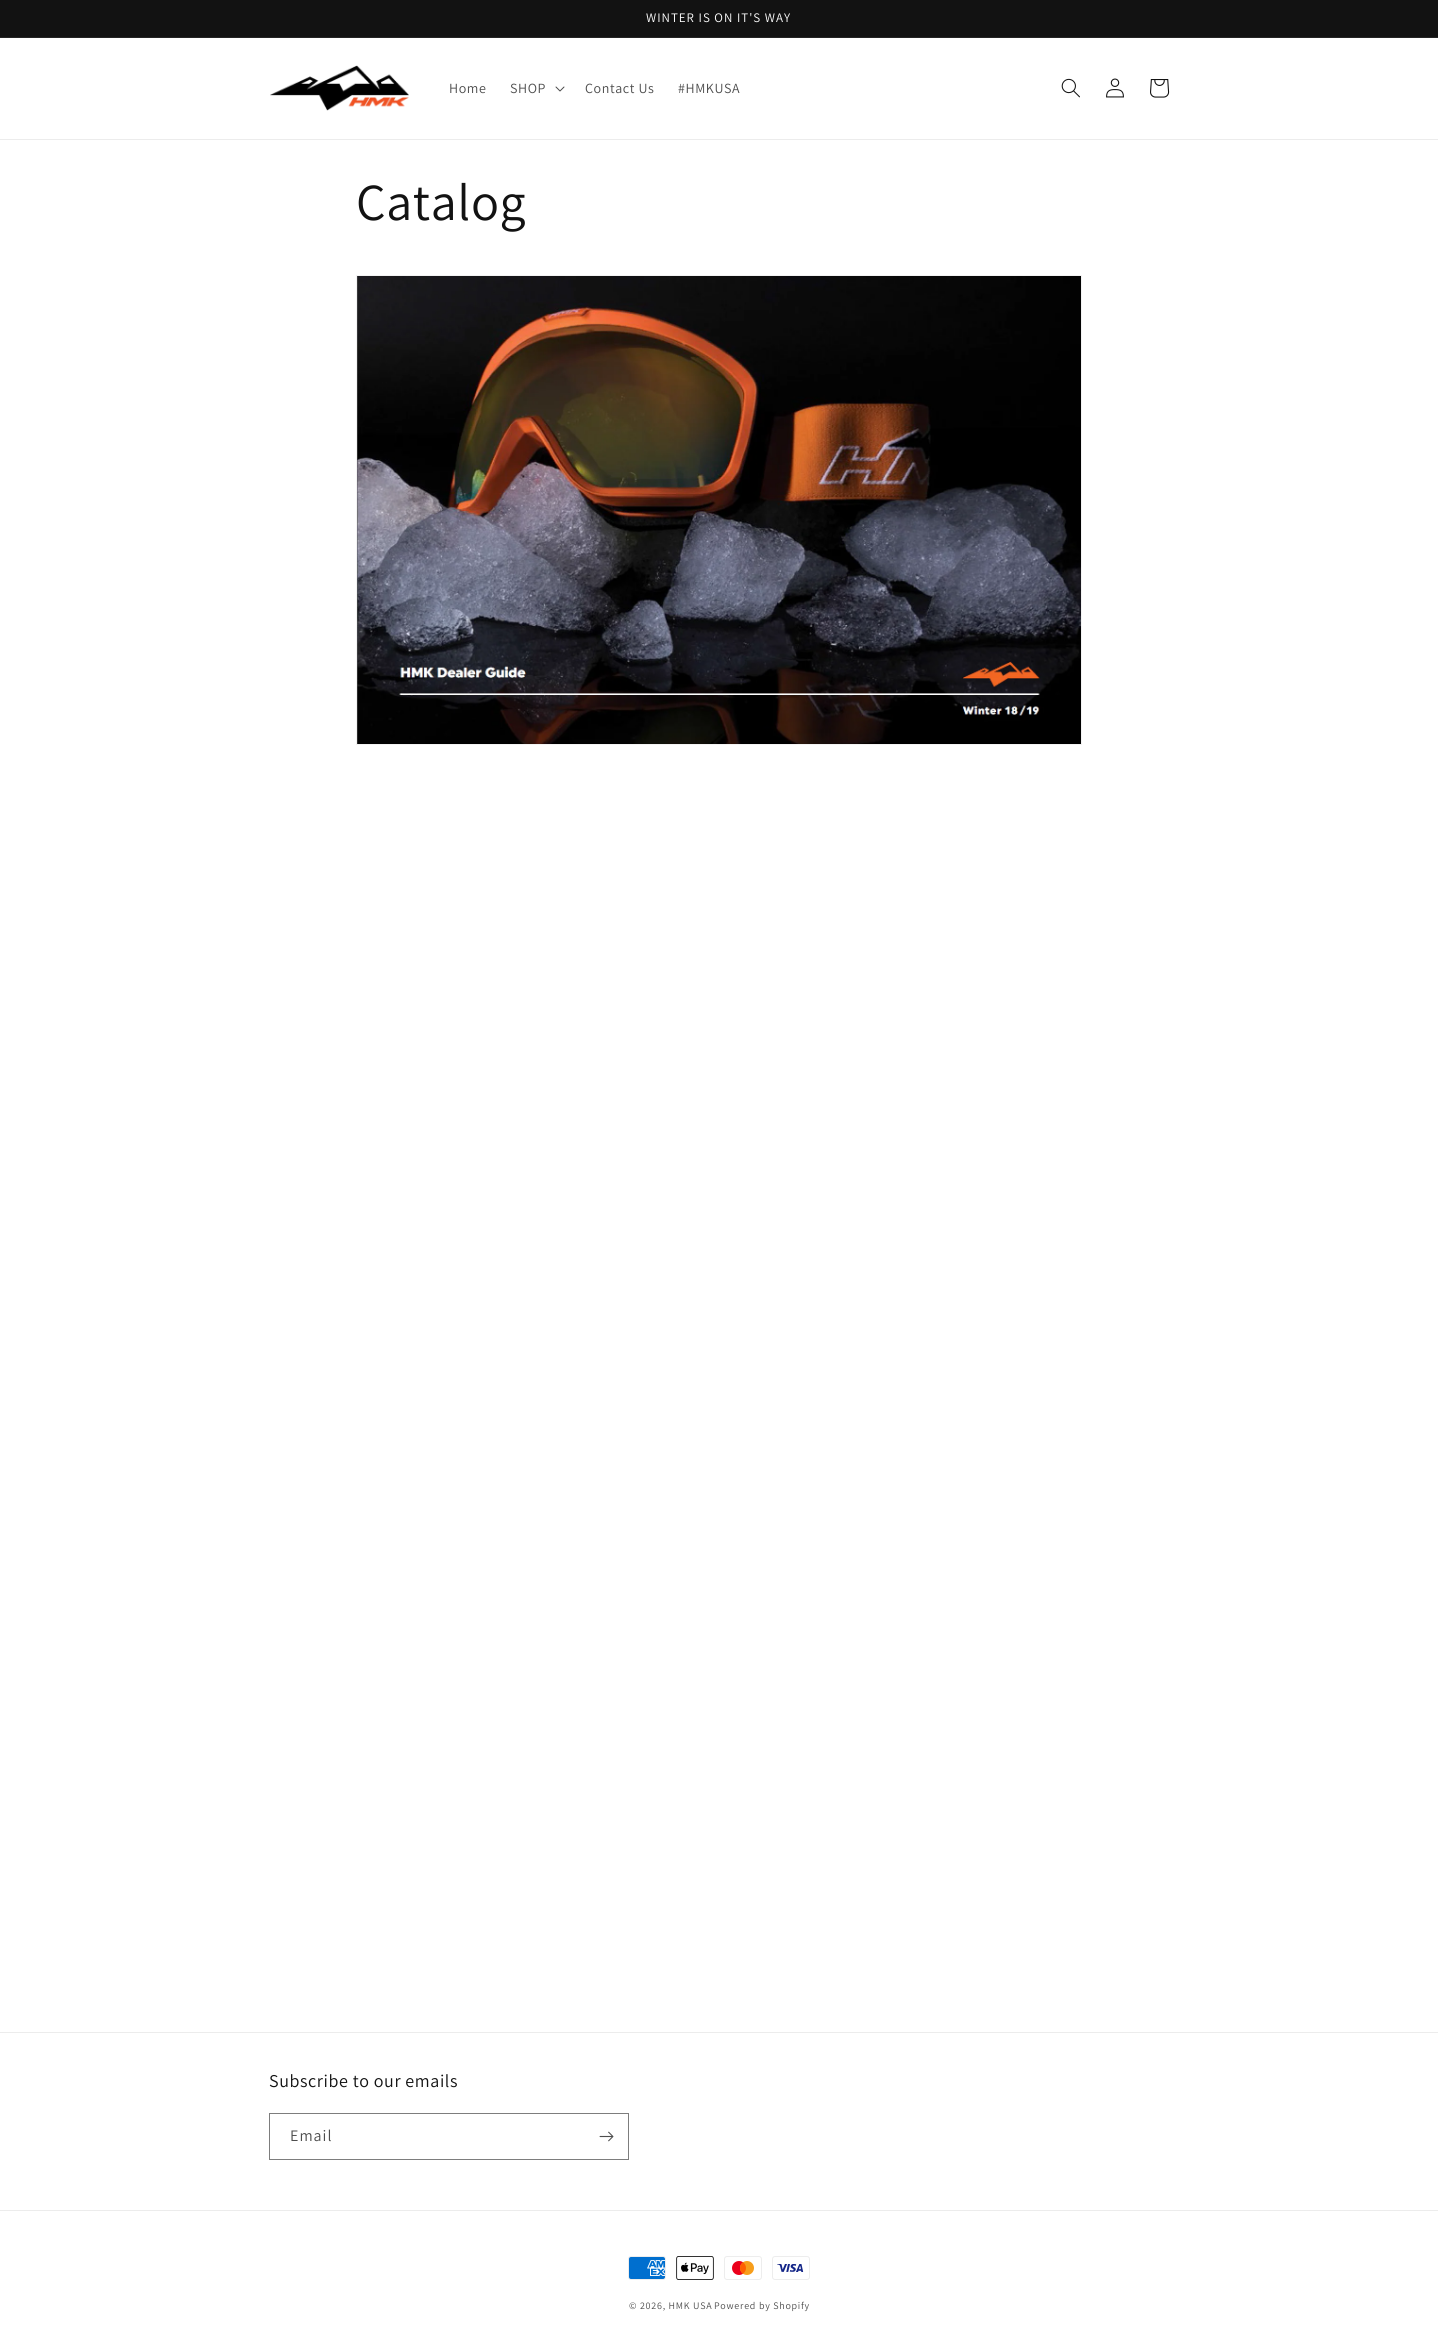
import math
import cairocffi as cairo

surface = cairo.ImageSurface(cairo.FORMAT_RGB24, 1438, 2351)
ctx = cairo.Context(surface)
options = cairo.FontOptions()
options.set_hint_metrics(cairo.HINT_METRICS_OFF)
options.set_hint_style(cairo.HINT_STYLE_NONE)
ctx.set_font_options(options)
ctx.set_miter_limit(4)


def rgb(r, g, b):
    ctx.set_source_rgb(r / 255, g / 255, b / 255)


def face(family, size, italic, bold):
    ctx.select_font_face(family, cairo.FONT_SLANT_ITALIC if italic else cairo.FONT_SLANT_NORMAL, cairo.FONT_WEIGHT_BOLD if bold else cairo.FONT_WEIGHT_NORMAL)
    ctx.set_font_size(size)


def tracked(x, y, s, letter, word):
    ctx.move_to(x, y)
    for ch in s:
        ctx.show_text(ch)
        ctx.rel_move_to(letter + word * (ch == ' '), 0)


def rect(x, y, w, h):
    ctx.rectangle(x, y, w, h)
    ctx.fill()


def image(path, x, y, w, h):
    ctx.save()
    ctx.set_source_surface(cairo.ImageSurface.create_from_png(path), x, y)
    ctx.rectangle(x, y, w, h)
    ctx.fill()
    ctx.restore()


rgb(255, 255, 255)
ctx.paint()
rgb(18, 18, 18)
rect(0, 0, 1438, 37)
rgb(37, 37, 37)
rect(0, 37, 1438, 1)
face('Assistant', 13, 0, 0)
rgb(255, 255, 255)
tracked(646, 22, 'WINTER IS ON IT\'S WAY', 1, 0)
rgb(236, 236, 236)
rect(0, 139, 1438, 1)
image('image0.png', 270, 65, 139, 46)
face('Assistant', 14, 0, 0)
rgb(77, 77, 77)
tracked(449, 93, 'Home', 0.6, 0)
tracked(510, 93, 'SHOP', 0.6, 0)
image('image1.png', 555, 86, 10, 6)
tracked(585, 93, 'Contact Us', 0.6, 0)
tracked(678, 93, '#HMKUSA', 0.6, 0)
image('image2.png', 1061, 78, 19, 20)
image('image3.png', 1106, 78, 18, 20)
image('image4.png', 1150, 79, 20, 19)
face('Assistant', 52, 0, 0)
rgb(18, 18, 18)
tracked(356, 220, 'Catalog', 0.6, 0)
ctx.rectangle(356.5, 275.5, 725, 469)
rgb(243, 243, 243)
ctx.set_line_width(1)
ctx.stroke()
image('image5.png', 357, 276, 724, 468)
rgb(236, 236, 236)
rect(0, 2032, 1438, 1)
face('Assistant', 18, 0, 0)
rgb(18, 18, 18)
tracked(269, 2087, 'Subscribe to our emails', 0.6, 0)
ctx.rectangle(269.5, 2113.5, 359, 46)
rgb(125, 125, 125)
ctx.stroke()
face('Assistant', 16, 0, 0)
rgb(77, 77, 77)
tracked(290, 2141, 'Email', 1, 0)
image('image6.png', 599, 2131, 15, 11)
rgb(236, 236, 236)
rect(0, 2210, 1438, 1)
image('image7.png', 628, 2256, 38, 24)
image('image8.png', 676, 2256, 38, 24)
image('image9.png', 724, 2256, 38, 24)
image('image10.png', 772, 2256, 38, 24)
face('Assistant', 10, 0, 0)
rgb(77, 77, 77)
tracked(629, 2309, '© 2026, HMK USA', 0.75, 0)
tracked(714, 2309, 'Powered by Shopify', 0.75, 0)
surface.write_to_png('render.png')
